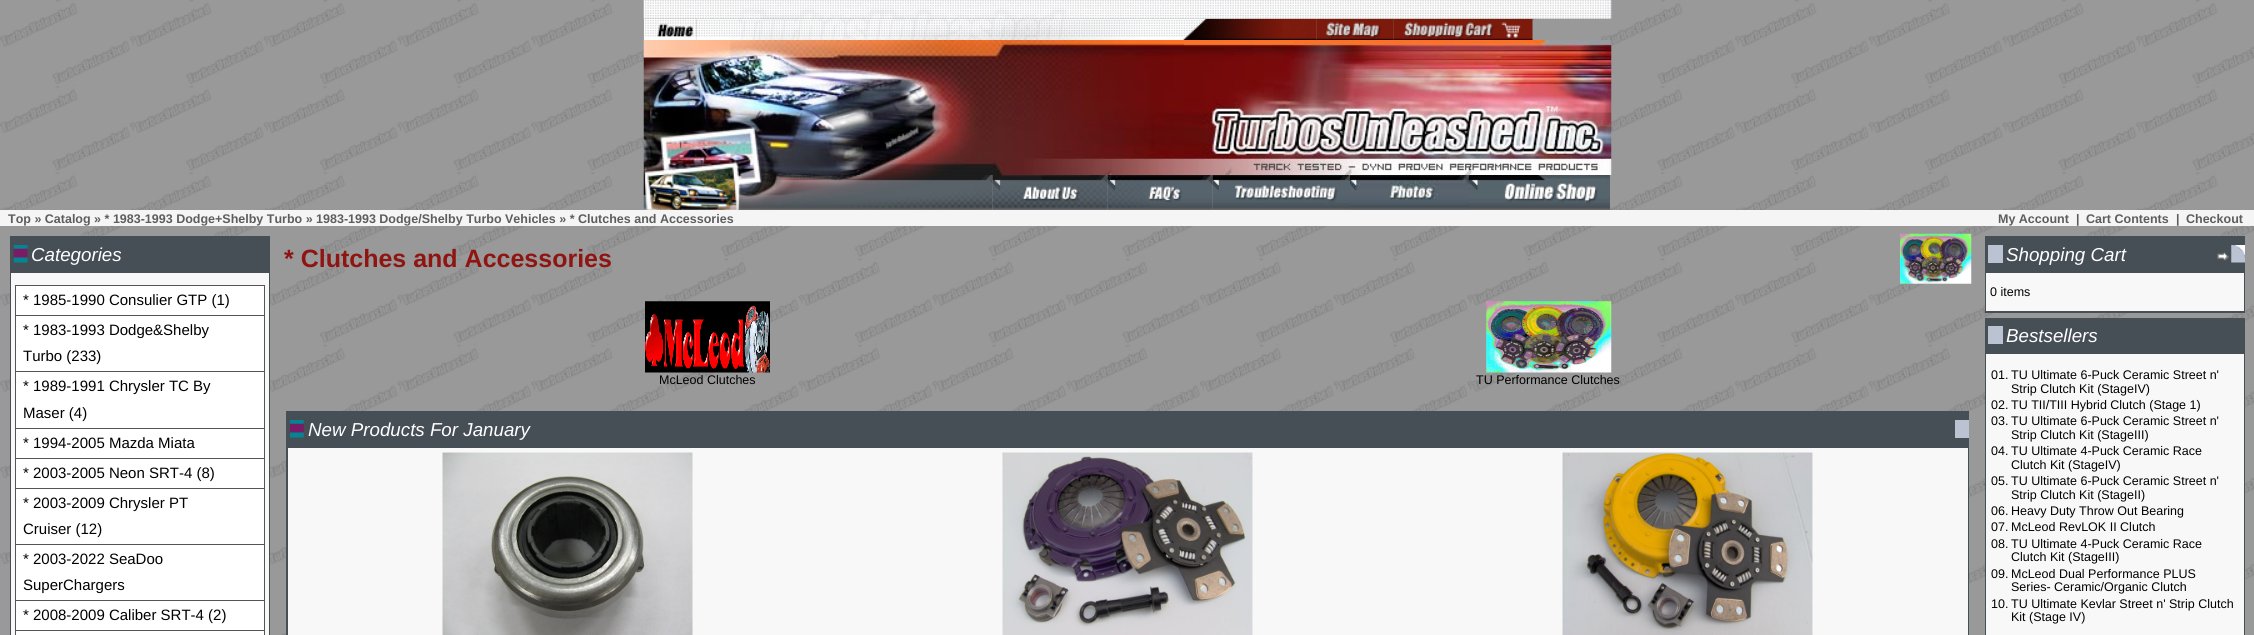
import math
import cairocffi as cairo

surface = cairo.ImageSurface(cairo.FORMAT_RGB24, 2254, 635)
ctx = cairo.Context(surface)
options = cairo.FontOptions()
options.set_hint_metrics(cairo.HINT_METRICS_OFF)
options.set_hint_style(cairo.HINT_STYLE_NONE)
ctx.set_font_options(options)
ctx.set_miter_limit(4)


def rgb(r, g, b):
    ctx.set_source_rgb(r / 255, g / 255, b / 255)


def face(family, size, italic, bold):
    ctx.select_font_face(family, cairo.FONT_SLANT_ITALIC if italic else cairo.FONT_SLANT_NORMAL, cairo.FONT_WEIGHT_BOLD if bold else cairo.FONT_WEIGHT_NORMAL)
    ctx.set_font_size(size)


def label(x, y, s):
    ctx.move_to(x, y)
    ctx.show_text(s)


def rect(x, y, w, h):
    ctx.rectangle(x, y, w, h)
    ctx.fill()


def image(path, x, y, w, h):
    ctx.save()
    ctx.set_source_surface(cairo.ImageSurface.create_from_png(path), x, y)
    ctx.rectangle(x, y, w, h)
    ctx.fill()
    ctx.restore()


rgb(255, 255, 255)
ctx.paint()
image('image0.png', 0, 0, 2254, 635)
image('image1.png', 643, 0, 969, 19)
image('image2.png', 643, 19, 54, 21)
image('image3.png', 696, 18, 621, 22)
image('image4.png', 1316, 18, 78, 22)
image('image5.png', 1393, 18, 140, 22)
image('image6.png', 643, 40, 969, 135)
image('image7.png', 643, 175, 350, 35)
image('image8.png', 992, 175, 116, 35)
image('image9.png', 1107, 175, 106, 35)
image('image10.png', 1212, 175, 138, 35)
image('image11.png', 1350, 175, 120, 35)
image('image12.png', 1470, 175, 140, 35)
rgb(245, 245, 245)
rect(0, 210, 2254, 16)
face('Liberation Sans', 12.5, 0, 1)
rgb(93, 93, 93)
label(8, 223, 'Top » Catalog » * 1983-1993 Dodge+Shelby Turbo » 1983-1993 Dodge/Shelby Turbo Vehicles » * Clutches and Accessories')
label(1998, 223, 'My Account')
label(2076, 223, '|')
label(2086, 223, 'Cart Contents')
label(2176, 223, '|')
label(2186, 223, 'Checkout')
rgb(70, 78, 86)
rect(10, 236, 260, 35)
image('image13.png', 13, 245, 15, 18)
face('Liberation Sans', 18.75, 1, 0)
rgb(255, 255, 255)
label(31, 261, 'Categories')
rgb(70, 79, 86)
rect(10, 271, 260, 364)
rgb(248, 248, 249)
rect(11, 273, 258, 362)
rgb(255, 255, 255)
rect(16, 286, 248, 29)
rgb(85, 85, 85)
rect(15, 285, 250, 1)
rect(264, 285, 1, 30)
rect(15, 285, 1, 30)
face('Liberation Sans', 15, 0, 0)
rgb(0, 0, 0)
label(23, 305, '* 1985-1990 Consulier GTP (1)')
rgb(255, 255, 255)
rect(16, 316, 248, 55)
rgb(85, 85, 85)
rect(15, 315, 250, 1)
rect(264, 315, 1, 56)
rect(15, 315, 1, 56)
rgb(0, 0, 0)
label(23, 335, '* 1983-1993 Dodge&Shelby')
label(23, 361, 'Turbo (233)')
rgb(255, 255, 255)
rect(16, 372, 248, 56)
rgb(85, 85, 85)
rect(15, 371, 250, 1)
rect(264, 371, 1, 57)
rect(15, 371, 1, 57)
rgb(0, 0, 0)
label(23, 391, '* 1989-1991 Chrysler TC By')
label(23, 418, 'Maser (4)')
rgb(255, 255, 255)
rect(16, 429, 248, 29)
rgb(85, 85, 85)
rect(15, 428, 250, 1)
rect(264, 428, 1, 30)
rect(15, 428, 1, 30)
rgb(0, 0, 0)
label(23, 448, '* 1994-2005 Mazda Miata')
rgb(255, 255, 255)
rect(16, 459, 248, 29)
rgb(85, 85, 85)
rect(15, 458, 250, 1)
rect(264, 458, 1, 30)
rect(15, 458, 1, 30)
rgb(0, 0, 0)
label(23, 478, '* 2003-2005 Neon SRT-4 (8)')
rgb(255, 255, 255)
rect(16, 489, 248, 55)
rgb(85, 85, 85)
rect(15, 488, 250, 1)
rect(264, 488, 1, 56)
rect(15, 488, 1, 56)
rgb(0, 0, 0)
label(23, 508, '* 2003-2009 Chrysler PT')
label(23, 534, 'Cruiser (12)')
rgb(255, 255, 255)
rect(16, 545, 248, 55)
rgb(85, 85, 85)
rect(15, 544, 250, 1)
rect(264, 544, 1, 56)
rect(15, 544, 1, 56)
rgb(0, 0, 0)
label(23, 564, '* 2003-2022 SeaDoo')
label(23, 590, 'SuperChargers')
rgb(255, 255, 255)
rect(16, 601, 248, 29)
rgb(85, 85, 85)
rect(15, 600, 250, 1)
rect(264, 600, 1, 30)
rect(15, 600, 1, 30)
rgb(0, 0, 0)
label(23, 620, '* 2008-2009 Caliber SRT-4 (2)')
rgb(255, 255, 255)
rect(15, 631, 250, 4)
rgb(85, 85, 85)
rect(15, 630, 250, 1)
rect(264, 630, 1, 5)
rect(15, 630, 1, 5)
face('Liberation Sans', 25, 0, 1)
rgb(143, 21, 18)
label(284, 267, '* Clutches and Accessories')
image('image14.png', 1900, 233, 72, 51)
image('image15.png', 645, 301, 125, 72)
face('Liberation Sans', 12.5, 0, 0)
rgb(0, 0, 0)
label(659, 384, 'McLeod Clutches')
image('image16.png', 1486, 301, 126, 72)
label(1476, 384, 'TU Performance Clutches')
rgb(70, 78, 86)
rect(286, 411, 1683, 35)
image('image17.png', 290, 420, 14, 18)
face('Liberation Sans', 18.75, 1, 0)
rgb(255, 255, 255)
label(308, 436, 'New Products For January')
rgb(187, 195, 211)
rect(1955, 420, 14, 18)
rgb(70, 79, 86)
rect(286, 446, 1683, 189)
rgb(248, 248, 249)
rect(288, 448, 1680, 187)
image('image18.png', 442, 452, 251, 183)
image('image19.png', 1002, 452, 251, 183)
image('image20.png', 1562, 452, 251, 183)
rgb(70, 78, 86)
rect(1985, 236, 260, 35)
rgb(187, 195, 211)
rect(1988, 245, 15, 18)
rgb(255, 255, 255)
label(2006, 261, 'Shopping Cart')
image('image21.png', 2217, 252, 12, 9)
image('image22.png', 2231, 245, 14, 18)
rgb(70, 79, 86)
rect(1985, 271, 260, 42)
rgb(248, 248, 249)
rect(1986, 273, 258, 38)
face('Liberation Sans', 12.5, 0, 0)
rgb(0, 0, 0)
label(1990, 296, '0 items')
rgb(70, 78, 86)
rect(1985, 318, 260, 35)
rgb(187, 195, 211)
rect(1988, 326, 15, 18)
face('Liberation Sans', 18.75, 1, 0)
rgb(255, 255, 255)
label(2006, 342, 'Bestsellers')
rgb(70, 79, 86)
rect(1985, 353, 260, 282)
rgb(248, 248, 249)
rect(1986, 354, 258, 281)
face('Liberation Sans', 12.5, 0, 0)
rgb(0, 0, 0)
label(1991, 379, '01.')
label(2011, 379, 'TU Ultimate 6-Puck Ceramic Street n\'')
label(2011, 393, 'Strip Clutch Kit (StageIV)')
label(1991, 409, '02.')
label(2011, 409, 'TU TII/TIII Hybrid Clutch (Stage 1)')
label(1991, 425, '03.')
label(2011, 425, 'TU Ultimate 6-Puck Ceramic Street n\'')
label(2011, 439, 'Strip Clutch Kit (StageIII)')
label(1991, 455, '04.')
label(2011, 455, 'TU Ultimate 4-Puck Ceramic Race')
label(2011, 469, 'Clutch Kit (StageIV)')
label(1991, 485, '05.')
label(2011, 485, 'TU Ultimate 6-Puck Ceramic Street n\'')
label(2011, 499, 'Strip Clutch Kit (StageII)')
label(1991, 515, '06.')
label(2011, 515, 'Heavy Duty Throw Out Bearing')
label(1991, 531, '07.')
label(2011, 531, 'McLeod RevLOK II Clutch')
label(1991, 548, '08.')
label(2011, 548, 'TU Ultimate 4-Puck Ceramic Race')
label(2011, 561, 'Clutch Kit (StageIII)')
label(1991, 578, '09.')
label(2011, 578, 'McLeod Dual Performance PLUS')
label(2011, 591, 'Series- Ceramic/Organic Clutch')
label(1991, 608, '10.')
label(2011, 608, 'TU Ultimate Kevlar Street n\' Strip Clutch')
label(2011, 621, 'Kit (Stage IV)')
surface.write_to_png('render.png')
